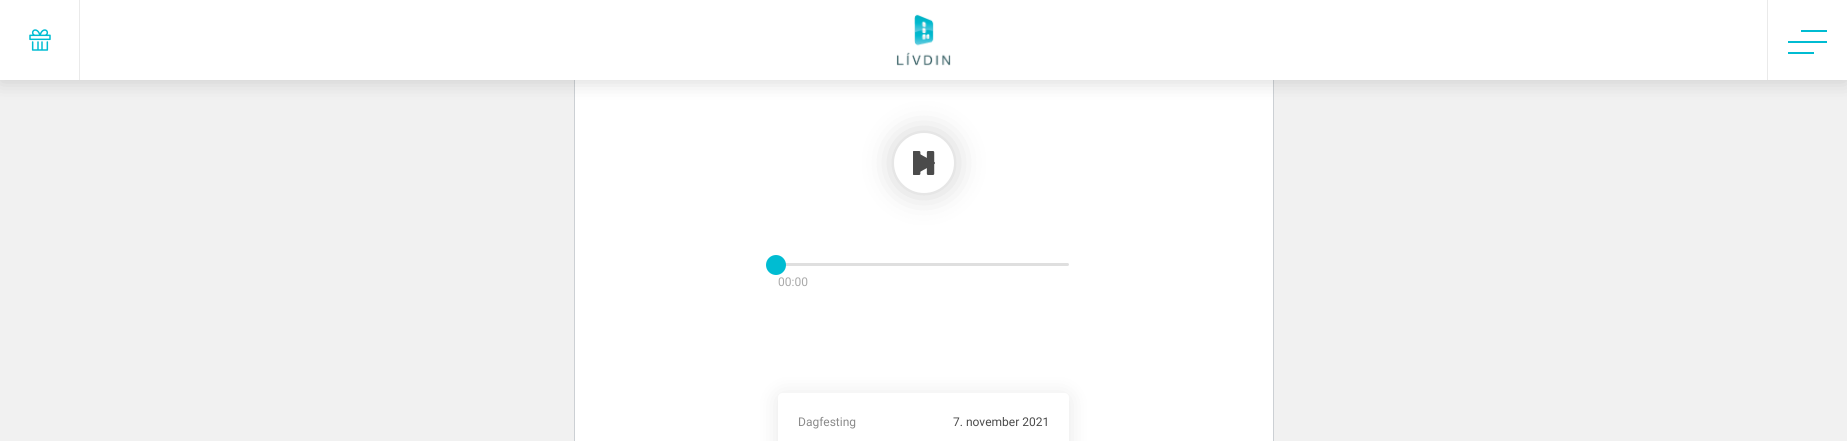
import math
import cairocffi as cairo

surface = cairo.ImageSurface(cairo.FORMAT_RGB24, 1847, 441)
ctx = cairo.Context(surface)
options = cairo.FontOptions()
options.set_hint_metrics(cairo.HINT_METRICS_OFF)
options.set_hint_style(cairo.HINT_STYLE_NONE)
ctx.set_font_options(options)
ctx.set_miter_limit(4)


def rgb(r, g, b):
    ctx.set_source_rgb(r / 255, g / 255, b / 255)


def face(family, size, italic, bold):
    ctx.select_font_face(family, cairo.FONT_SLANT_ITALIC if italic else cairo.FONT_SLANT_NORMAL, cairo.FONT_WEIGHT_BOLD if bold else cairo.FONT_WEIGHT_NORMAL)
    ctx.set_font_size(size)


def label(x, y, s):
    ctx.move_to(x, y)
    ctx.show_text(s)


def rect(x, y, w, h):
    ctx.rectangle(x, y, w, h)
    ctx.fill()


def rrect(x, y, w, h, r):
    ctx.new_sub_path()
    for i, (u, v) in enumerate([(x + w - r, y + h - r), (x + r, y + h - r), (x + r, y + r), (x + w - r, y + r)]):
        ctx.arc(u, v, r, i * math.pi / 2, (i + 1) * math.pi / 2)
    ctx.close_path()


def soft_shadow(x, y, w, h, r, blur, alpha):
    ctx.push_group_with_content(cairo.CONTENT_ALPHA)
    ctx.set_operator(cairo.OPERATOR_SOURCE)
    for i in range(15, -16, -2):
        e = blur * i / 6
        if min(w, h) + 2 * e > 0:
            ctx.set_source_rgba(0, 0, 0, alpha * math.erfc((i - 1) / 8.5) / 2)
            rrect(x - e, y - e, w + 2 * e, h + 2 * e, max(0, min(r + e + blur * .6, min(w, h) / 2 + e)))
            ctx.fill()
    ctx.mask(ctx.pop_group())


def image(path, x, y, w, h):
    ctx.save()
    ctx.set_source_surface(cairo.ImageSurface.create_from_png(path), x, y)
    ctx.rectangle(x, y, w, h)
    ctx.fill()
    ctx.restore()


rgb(241, 241, 241)
ctx.paint()
rgb(255, 255, 255)
rect(575, 80, 698, 361)
ctx.rectangle(574.5, 28.5, 699, 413)
rgb(204, 208, 212)
ctx.set_line_width(1)
ctx.stroke()
rgb(0, 0, 0)
soft_shadow(0, 2, 1847, 80, 0, 10, 0.15)
rgb(255, 255, 255)
rect(0, 0, 1847, 80)
image('image0.png', 29, 29, 22, 22)
rgb(234, 234, 234)
rect(79, 0, 1, 80)
image('image1.png', 896, 14, 55, 52)
rect(1767, 0, 1, 80)
rgb(0, 188, 210)
rect(1801, 30, 26, 2)
rect(1788, 41, 39, 2)
rect(1788, 52, 26, 2)
rgb(0, 0, 0)
soft_shadow(894, 133, 60, 60, 30, 15, 0.2)
rgb(255, 255, 255)
ctx.arc(924, 163, 30, 0, 2 * math.pi)
ctx.fill()
image('image2.png', 913, 151, 22, 24)
image('image3.png', 913, 151, 22, 24)
rgb(223, 223, 223)
rrect(778, 263, 291, 3, 1.5)
ctx.fill()
rgb(0, 188, 210)
ctx.arc(776, 265, 10, 0, 2 * math.pi)
ctx.fill()
face('Roboto', 12, 0, 0)
rgb(169, 169, 169)
label(778, 286, '00:00')
ctx.save()
ctx.set_fill_rule(cairo.FILL_RULE_EVEN_ODD)
ctx.new_path()
ctx.move_to(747, 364)
ctx.line_to(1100, 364)
ctx.line_to(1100, 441)
ctx.line_to(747, 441)
ctx.close_path()
ctx.move_to(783, 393)
ctx.line_to(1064, 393)
ctx.curve_to(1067, 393, 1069, 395, 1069, 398)
ctx.line_to(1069, 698)
ctx.curve_to(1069, 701, 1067, 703, 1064, 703)
ctx.line_to(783, 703)
ctx.curve_to(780, 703, 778, 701, 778, 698)
ctx.line_to(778, 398)
ctx.curve_to(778, 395, 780, 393, 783, 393)
ctx.close_path()
ctx.clip()
rgb(0, 0, 0)
soft_shadow(778, 395, 291, 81, 5, 10, 0.1)
ctx.restore()
rgb(138, 138, 138)
label(798, 426, 'Dagfesting')
rgb(75, 75, 75)
label(953, 426, '7. november 2021')
surface.write_to_png('render.png')
